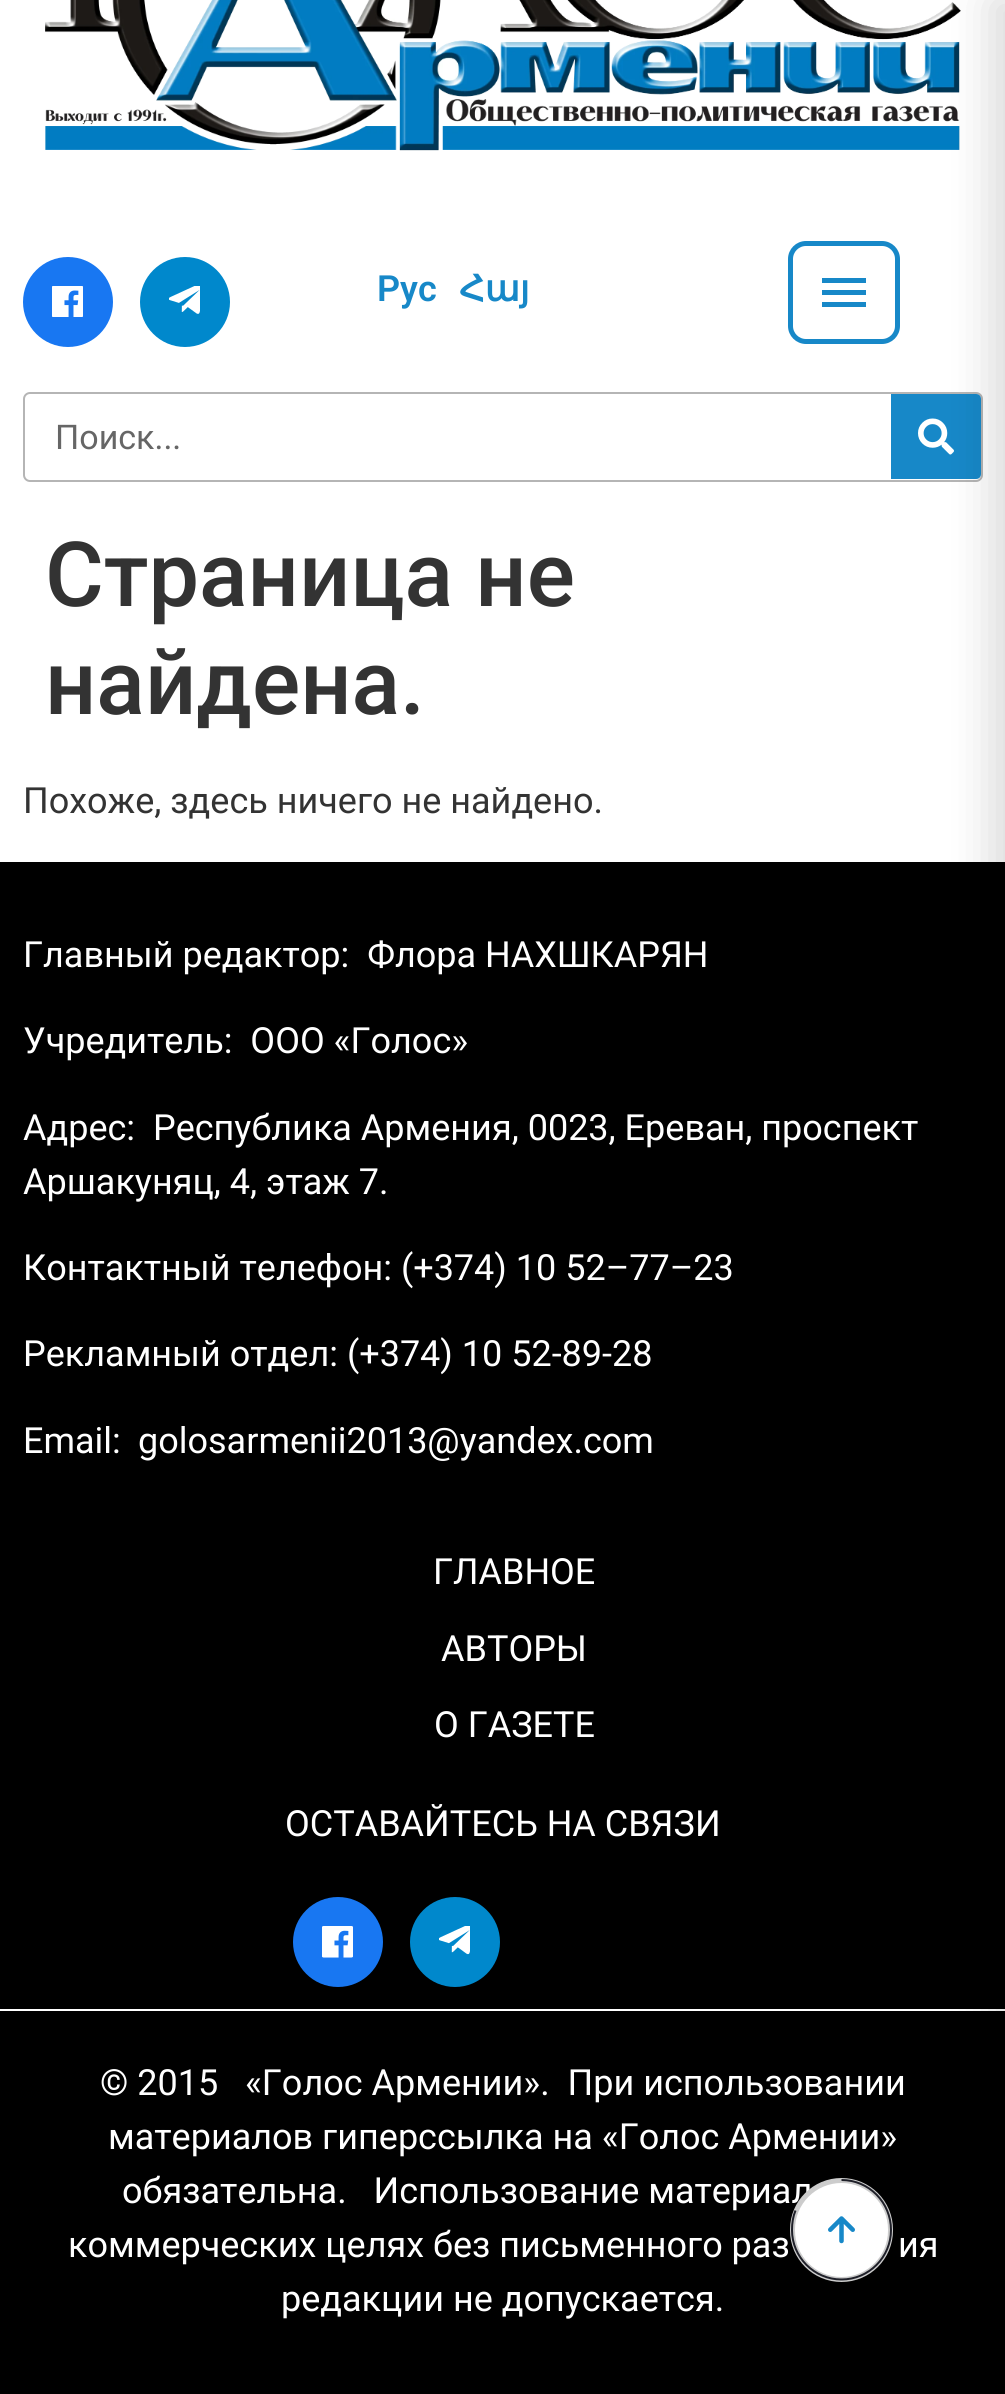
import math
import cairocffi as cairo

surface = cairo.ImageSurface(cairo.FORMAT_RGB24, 1005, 2394)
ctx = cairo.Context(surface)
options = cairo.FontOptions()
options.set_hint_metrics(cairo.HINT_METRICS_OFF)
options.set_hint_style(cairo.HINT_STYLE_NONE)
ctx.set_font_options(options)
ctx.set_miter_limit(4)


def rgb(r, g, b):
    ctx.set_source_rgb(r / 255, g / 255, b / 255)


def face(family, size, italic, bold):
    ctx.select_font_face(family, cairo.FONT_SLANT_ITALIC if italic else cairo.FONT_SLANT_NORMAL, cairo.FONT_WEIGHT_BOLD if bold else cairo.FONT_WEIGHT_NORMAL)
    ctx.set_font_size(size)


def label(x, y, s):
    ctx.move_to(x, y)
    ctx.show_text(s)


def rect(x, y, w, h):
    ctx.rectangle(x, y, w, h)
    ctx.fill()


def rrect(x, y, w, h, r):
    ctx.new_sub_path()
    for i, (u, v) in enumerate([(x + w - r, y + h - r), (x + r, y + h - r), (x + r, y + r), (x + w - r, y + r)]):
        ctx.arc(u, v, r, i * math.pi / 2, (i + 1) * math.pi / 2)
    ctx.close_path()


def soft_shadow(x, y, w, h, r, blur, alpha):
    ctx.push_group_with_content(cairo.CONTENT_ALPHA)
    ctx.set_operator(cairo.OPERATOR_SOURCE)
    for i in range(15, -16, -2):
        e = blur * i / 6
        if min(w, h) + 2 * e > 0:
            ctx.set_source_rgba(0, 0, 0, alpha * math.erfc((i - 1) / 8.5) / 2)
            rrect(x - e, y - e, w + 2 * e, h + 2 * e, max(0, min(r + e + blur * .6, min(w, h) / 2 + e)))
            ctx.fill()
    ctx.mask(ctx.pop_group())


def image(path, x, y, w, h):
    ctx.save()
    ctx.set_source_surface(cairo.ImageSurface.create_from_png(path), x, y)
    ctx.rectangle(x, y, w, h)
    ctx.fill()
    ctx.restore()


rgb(255, 255, 255)
ctx.paint()
image('image0.png', 45, 0, 916, 151)
rgb(24, 119, 242)
ctx.arc(68, 302, 45, 0, 2 * math.pi)
ctx.fill()
image('image1.png', 52, 286, 31, 31)
rgb(0, 136, 204)
ctx.arc(185, 302, 45, 0, 2 * math.pi)
ctx.fill()
image('image2.png', 169, 286, 31, 28)
face('Roboto SemiBold', 36, 0, 0)
rgb(23, 136, 200)
label(377, 301, 'Рус')
face('DejaVu Sans', 36, 0, 1)
label(459, 301, 'Հայ')
rrect(790.5, 243.5, 107, 98, 15.5)
ctx.set_line_width(5)
ctx.stroke()
ctx.new_path()
ctx.move_to(822, 278)
ctx.line_to(866, 278)
ctx.line_to(866, 283)
ctx.line_to(822, 283)
ctx.close_path()
ctx.move_to(822, 290)
ctx.line_to(866, 290)
ctx.line_to(866, 295)
ctx.line_to(822, 295)
ctx.close_path()
ctx.move_to(822, 302)
ctx.line_to(866, 302)
ctx.line_to(866, 307)
ctx.line_to(822, 307)
ctx.close_path()
ctx.fill()
rrect(24, 393, 958, 88, 6)
rgb(181, 181, 181)
ctx.set_line_width(2)
ctx.stroke()
rgb(23, 136, 200)
ctx.new_path()
ctx.move_to(891, 394)
ctx.line_to(976, 394)
ctx.curve_to(979, 394, 981, 396, 981, 399)
ctx.line_to(981, 474)
ctx.curve_to(981, 477, 979, 479, 976, 479)
ctx.line_to(891, 479)
ctx.close_path()
ctx.fill()
image('image3.png', 918, 418, 36, 37)
rgb(0, 0, 0)
rect(0, 862, 1005, 1532)
rgb(255, 255, 255)
rect(0, 2009, 1005, 2)
rgb(0, 0, 0)
soft_shadow(992, 0, 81, 2394, 0, 22.5, 0.15)
face('Roboto', 34, 0, 0)
rgb(102, 102, 102)
label(55, 449, 'Поиск...')
face('Roboto Medium', 90, 0, 0)
rgb(51, 51, 51)
label(45, 606, 'Страница не')
label(45, 714, 'найдена.')
face('Roboto', 36, 0, 0)
label(23, 813, 'Похоже, здесь ничего не найдено.')
rgb(255, 255, 255)
label(23, 967, 'Главный редактор:  Флора НАХШКАРЯН')
label(23, 1053, 'Учредитель:  ООО «Голос»')
label(23, 1140, 'Адрес:  Республика Армения, 0023, Ереван, проспект')
label(23, 1194, 'Аршакуняц, 4, этаж 7.')
label(23, 1280, 'Контактный телефон: (+374) 10 52–77–23')
label(23, 1366, 'Рекламный отдел: (+374) 10 52-89-28')
label(23, 1453, 'Email:')
label(138, 1453, 'golosarmenii2013@yandex.com')
label(433, 1584, 'ГЛАВНОЕ')
label(441, 1661, 'АВТОРЫ')
label(434, 1737, 'О ГАЗЕТЕ')
label(285, 1836, 'ОСТАВАЙТЕСЬ НА СВЯЗИ')
rgb(24, 119, 242)
ctx.new_path()
ctx.arc(338, 1942, 45, 0, 2 * math.pi)
ctx.fill()
image('image4.png', 322, 1926, 31, 32)
rgb(0, 136, 204)
ctx.arc(455, 1942, 45, 0, 2 * math.pi)
ctx.fill()
image('image5.png', 439, 1926, 31, 29)
rgb(255, 255, 255)
label(100, 2095, '© 2015   «Голос Армении».  При использовании')
label(108, 2149, 'материалов гиперссылка на «Голос Армении»')
label(122, 2203, 'обязательна.   Использование материал')
label(68, 2257, 'коммерческих целях без письменного раз')
label(898, 2257, 'ия')
label(281, 2311, 'редакции не допускается.')
rrect(792.5, 2180.5, 98, 99, 49)
ctx.fill_preserve()
rgb(204, 204, 204)
ctx.set_line_width(5)
ctx.stroke()
ctx.new_path()
ctx.move_to(841.5, 2180)
ctx.curve_to(869, 2180, 891, 2202.5, 891, 2230)
ctx.curve_to(891, 2257, 869, 2279.5, 841.5, 2279.5)
ctx.curve_to(814, 2279.5, 792, 2257, 792, 2230)
ctx.curve_to(792, 2223, 793, 2216.5, 795.5, 2210.5)
rgb(31, 32, 41)
ctx.set_line_width(2)
ctx.stroke()
image('image6.png', 828, 2216, 27, 28)
surface.write_to_png('render.png')
